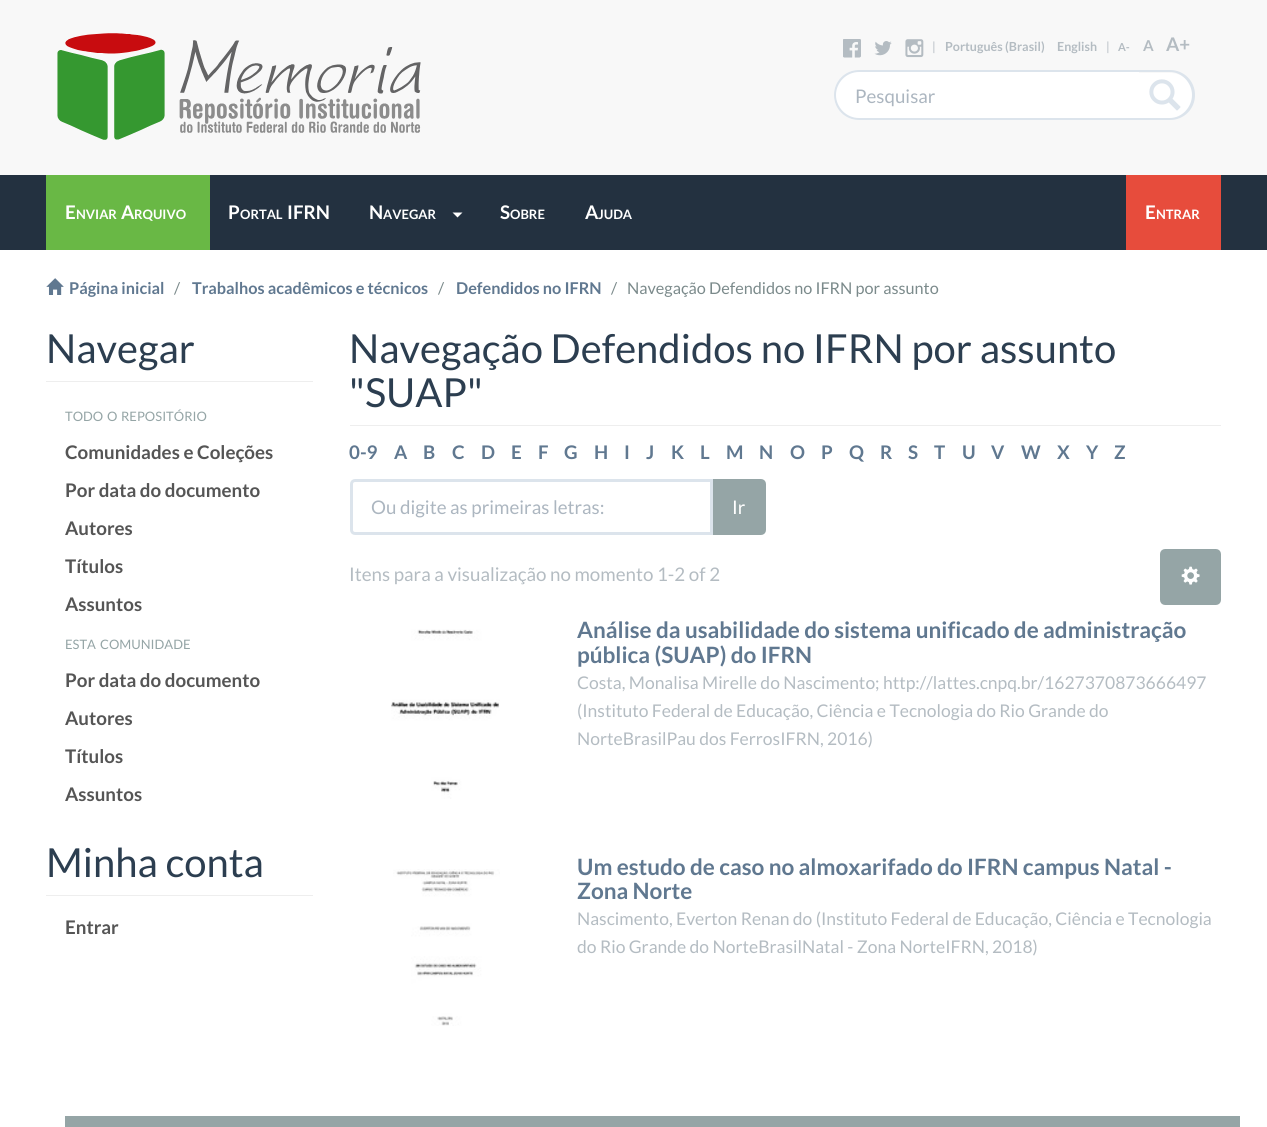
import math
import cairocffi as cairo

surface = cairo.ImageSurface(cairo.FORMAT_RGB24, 1267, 1127)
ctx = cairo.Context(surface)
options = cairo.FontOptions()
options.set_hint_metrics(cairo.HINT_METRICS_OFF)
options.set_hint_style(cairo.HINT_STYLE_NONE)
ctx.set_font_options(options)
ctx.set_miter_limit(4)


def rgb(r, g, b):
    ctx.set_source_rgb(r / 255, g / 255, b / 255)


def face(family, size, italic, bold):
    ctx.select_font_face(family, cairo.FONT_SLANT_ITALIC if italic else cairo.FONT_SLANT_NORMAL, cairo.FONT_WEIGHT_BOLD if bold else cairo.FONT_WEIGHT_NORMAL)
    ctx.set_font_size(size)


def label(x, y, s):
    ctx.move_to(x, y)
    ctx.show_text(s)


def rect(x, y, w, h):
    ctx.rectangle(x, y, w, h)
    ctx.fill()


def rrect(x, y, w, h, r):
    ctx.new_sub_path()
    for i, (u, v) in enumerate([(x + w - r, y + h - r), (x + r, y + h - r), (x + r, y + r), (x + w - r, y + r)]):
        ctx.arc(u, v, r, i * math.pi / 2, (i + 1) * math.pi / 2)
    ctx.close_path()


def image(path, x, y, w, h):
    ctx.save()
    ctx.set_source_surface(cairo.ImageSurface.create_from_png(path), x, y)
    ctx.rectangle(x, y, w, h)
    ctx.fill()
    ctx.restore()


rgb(255, 255, 255)
ctx.paint()
rgb(248, 248, 248)
rect(0, 0, 1267, 175)
image('image0.png', 57, 33, 364, 107)
image('image1.png', 843, 39, 18, 19)
image('image2.png', 874, 41, 18, 15)
image('image3.png', 905, 39, 19, 19)
face('Lato', 12.5, 0, 0)
rgb(180, 188, 194)
label(932, 51, '|')
face('Lato', 12.5, 0, 1)
label(945, 51, 'Português (Brasil)')
label(1057, 51, 'English')
face('Lato', 12.5, 0, 0)
label(1106, 51, '|')
face('Lato', 11, 0, 1)
label(1118, 51, 'A-')
face('Lato', 15, 0, 1)
label(1143, 51, 'A')
face('Lato', 18.75, 0, 1)
label(1166, 51, 'A+')
rgb(255, 255, 255)
ctx.new_path()
ctx.move_to(1136, 73)
ctx.line_to(1170.5, 73)
ctx.curve_to(1183, 73, 1193, 83, 1193, 95.5)
ctx.curve_to(1193, 108, 1183, 118, 1170.5, 118)
ctx.line_to(1136, 118)
ctx.close_path()
ctx.fill()
rgb(220, 228, 236)
ctx.set_fill_rule(cairo.FILL_RULE_EVEN_ODD)
ctx.new_path()
ctx.move_to(1136, 70)
ctx.line_to(1170, 70)
ctx.curve_to(1184, 70, 1195, 81, 1195, 95)
ctx.curve_to(1195, 109, 1184, 120, 1170, 120)
ctx.line_to(1136, 120)
ctx.close_path()
ctx.move_to(1136, 72)
ctx.line_to(1170, 72)
ctx.curve_to(1182, 72, 1192, 83, 1192, 95)
ctx.curve_to(1192, 107, 1182, 118, 1170, 118)
ctx.line_to(1136, 118)
ctx.close_path()
ctx.fill()
rgb(255, 255, 255)
ctx.new_path()
ctx.move_to(859, 70)
ctx.line_to(1139, 70)
ctx.line_to(1139, 120)
ctx.line_to(859, 120)
ctx.curve_to(845, 120, 834, 109, 834, 95)
ctx.curve_to(834, 81, 845, 70, 859, 70)
ctx.close_path()
ctx.fill()
rgb(220, 228, 236)
ctx.new_path()
ctx.move_to(859, 70)
ctx.line_to(1139, 70)
ctx.line_to(1139, 120)
ctx.line_to(859, 120)
ctx.curve_to(845, 120, 834, 109, 834, 95)
ctx.curve_to(834, 81, 845, 70, 859, 70)
ctx.close_path()
ctx.move_to(859, 72)
ctx.line_to(1139, 72)
ctx.line_to(1139, 118)
ctx.line_to(859, 118)
ctx.curve_to(846, 118, 836, 107, 836, 95)
ctx.curve_to(836, 83, 846, 72, 859, 72)
ctx.close_path()
ctx.fill()
face('Lato', 18.75, 0, 0)
rgb(172, 182, 192)
label(855, 103, 'Pesquisar')
image('image4.png', 1149, 79, 32, 32)
rgb(35, 49, 64)
rect(0, 175, 1267, 75)
rgb(105, 184, 69)
rect(46, 175, 164, 75)
face('Lato', 18.75, 0, 1)
rgb(255, 255, 255)
label(65, 219, 'E')
face('Lato', 13, 0, 1)
label(76, 219, 'NVIAR')
face('Lato', 18.75, 0, 1)
label(121, 219, 'A')
face('Lato', 13, 0, 1)
label(134, 219, 'RQUIVO')
face('Lato', 18.75, 0, 1)
label(228, 219, 'P')
face('Lato', 13, 0, 1)
label(240, 219, 'ORTAL')
face('Lato', 18.75, 0, 1)
label(287, 219, 'IFRN')
label(369, 219, 'N')
face('Lato', 13, 0, 1)
label(383, 219, 'AVEGAR')
ctx.set_fill_rule(cairo.FILL_RULE_WINDING)
ctx.new_path()
ctx.move_to(452.5, 212.5)
ctx.line_to(462.5, 212.5)
ctx.line_to(457.5, 217.5)
ctx.close_path()
ctx.fill()
face('Lato', 18.75, 0, 1)
label(500, 219, 'S')
face('Lato', 13, 0, 1)
label(510, 219, 'OBRE')
face('Lato', 18.75, 0, 1)
label(585, 219, 'A')
face('Lato', 13, 0, 1)
label(598, 219, 'JUDA')
rgb(231, 76, 60)
rect(1126, 175, 95, 75)
face('Lato', 18.75, 0, 1)
rgb(255, 255, 255)
label(1145, 219, 'E')
face('Lato', 13, 0, 1)
label(1156, 219, 'NTRAR')
image('image5.png', 46, 278, 18, 17)
face('Lato', 16.25, 0, 1)
rgb(96, 120, 144)
label(69, 294, 'Página inicial')
face('Lato', 16.25, 0, 0)
rgb(123, 138, 139)
label(174, 294, '/')
face('Lato', 16.25, 0, 1)
rgb(96, 120, 144)
label(192, 294, 'Trabalhos acadêmicos e técnicos')
face('Lato', 16.25, 0, 0)
rgb(123, 138, 139)
label(438, 294, '/')
face('Lato', 16.25, 0, 1)
rgb(96, 120, 144)
label(456, 294, 'Defendidos no IFRN')
face('Lato', 16.25, 0, 0)
rgb(123, 138, 139)
label(611, 294, '/')
label(627, 294, 'Navegação Defendidos no IFRN por assunto')
rgb(238, 238, 238)
rect(46, 381, 267, 1)
face('Lato', 40, 0, 0)
rgb(44, 62, 80)
label(46, 363, 'Navegar')
face('Lato', 13, 0, 0)
rgb(149, 165, 166)
label(65, 421, 'TODO')
label(107, 421, 'O')
label(121, 421, 'REPOSITÓRIO')
face('Lato', 18.75, 0, 1)
rgb(85, 85, 85)
label(65, 459, 'Comunidades e Coleções')
label(65, 497, 'Por data do documento')
label(65, 535, 'Autores')
label(65, 573, 'Títulos')
label(65, 611, 'Assuntos')
face('Lato', 13, 0, 0)
rgb(149, 165, 166)
label(65, 649, 'ESTA')
label(100, 649, 'COMUNIDADE')
face('Lato', 18.75, 0, 1)
rgb(85, 85, 85)
label(65, 687, 'Por data do documento')
label(65, 725, 'Autores')
label(65, 763, 'Títulos')
label(65, 801, 'Assuntos')
rgb(238, 238, 238)
rect(46, 895, 267, 1)
face('Lato', 40, 0, 0)
rgb(44, 62, 80)
label(46, 877, 'Minha conta')
face('Lato', 18.75, 0, 1)
rgb(85, 85, 85)
label(65, 934, 'Entrar')
rgb(238, 238, 238)
rect(350, 425, 871, 1)
face('Lato', 40, 0, 0)
rgb(44, 62, 80)
label(349, 363, 'Navegação Defendidos no IFRN por assunto')
label(349, 407, '"SUAP"')
face('Lato', 18.75, 0, 1)
rgb(96, 120, 144)
label(349, 459, '0-9')
label(394, 459, 'A')
label(423, 459, 'B')
label(452, 459, 'C')
label(481, 459, 'D')
label(511, 459, 'E')
label(538, 459, 'F')
label(564, 459, 'G')
label(594, 459, 'H')
label(624, 459, 'I')
label(646, 459, 'J')
label(671, 459, 'K')
label(700, 459, 'L')
label(726, 459, 'M')
label(759, 459, 'N')
label(790, 459, 'O')
label(821, 459, 'P')
label(849, 459, 'Q')
label(880, 459, 'R')
label(908, 459, 'S')
label(934, 459, 'T')
label(962, 459, 'U')
label(991, 459, 'V')
label(1021, 459, 'W')
label(1057, 459, 'X')
label(1086, 459, 'Y')
label(1114, 459, 'Z')
rgb(149, 165, 166)
ctx.new_path()
ctx.move_to(712.5, 480.5)
ctx.line_to(761, 480.5)
ctx.curve_to(763, 480.5, 764.5, 482, 764.5, 484)
ctx.line_to(764.5, 530)
ctx.curve_to(764.5, 532, 763, 533.5, 761, 533.5)
ctx.line_to(712.5, 533.5)
ctx.close_path()
ctx.fill_preserve()
ctx.set_line_width(3)
ctx.stroke()
rgb(255, 255, 255)
ctx.new_path()
ctx.move_to(355, 480.5)
ctx.line_to(711.5, 480.5)
ctx.line_to(711.5, 533.5)
ctx.line_to(355, 533.5)
ctx.curve_to(353, 533.5, 351.5, 532, 351.5, 530)
ctx.line_to(351.5, 484)
ctx.curve_to(351.5, 482, 353, 480.5, 355, 480.5)
ctx.close_path()
ctx.fill_preserve()
rgb(220, 228, 236)
ctx.stroke()
face('Lato', 18.75, 0, 0)
rgb(172, 182, 192)
label(371, 514, 'Ou digite as primeiras letras:')
rgb(255, 255, 255)
label(732, 514, 'Ir')
rgb(180, 188, 194)
label(349, 581, 'Itens para a visualização no momento 1-2 of 2')
rgb(149, 165, 166)
rrect(1161.5, 550.5, 58, 53, 3.5)
ctx.fill_preserve()
ctx.stroke()
image('image6.png', 1181, 566, 19, 19)
image('image7.png', 391, 629, 109, 170)
face('Lato', 22.5, 0, 1)
rgb(96, 120, 144)
label(577, 638, 'Análise da usabilidade do sistema unificado de administração')
label(577, 663, 'pública (SUAP) do IFRN')
face('Lato', 17.5, 0, 0)
rgb(180, 188, 194)
label(577, 689, 'Costa, Monalisa Mirelle do Nascimento; http://lattes.cnpq.br/1627370873666497')
label(577, 717, '(Instituto Federal de Educação, Ciência e Tecnologia do Rio Grande do')
label(577, 745, 'NorteBrasilPau dos FerrosIFRN, 2016)')
image('image8.png', 393, 869, 107, 157)
face('Lato', 22.5, 0, 1)
rgb(96, 120, 144)
label(577, 875, 'Um estudo de caso no almoxarifado do IFRN campus Natal -')
label(577, 899, 'Zona Norte')
face('Lato', 17.5, 0, 0)
rgb(180, 188, 194)
label(577, 925, 'Nascimento, Everton Renan do (Instituto Federal de Educação, Ciência e Tecnologia')
label(577, 953, 'do Rio Grande do NorteBrasilNatal - Zona NorteIFRN, 2018)')
rgb(149, 165, 166)
rect(65, 1116, 1175, 11)
surface.write_to_png('render.png')
